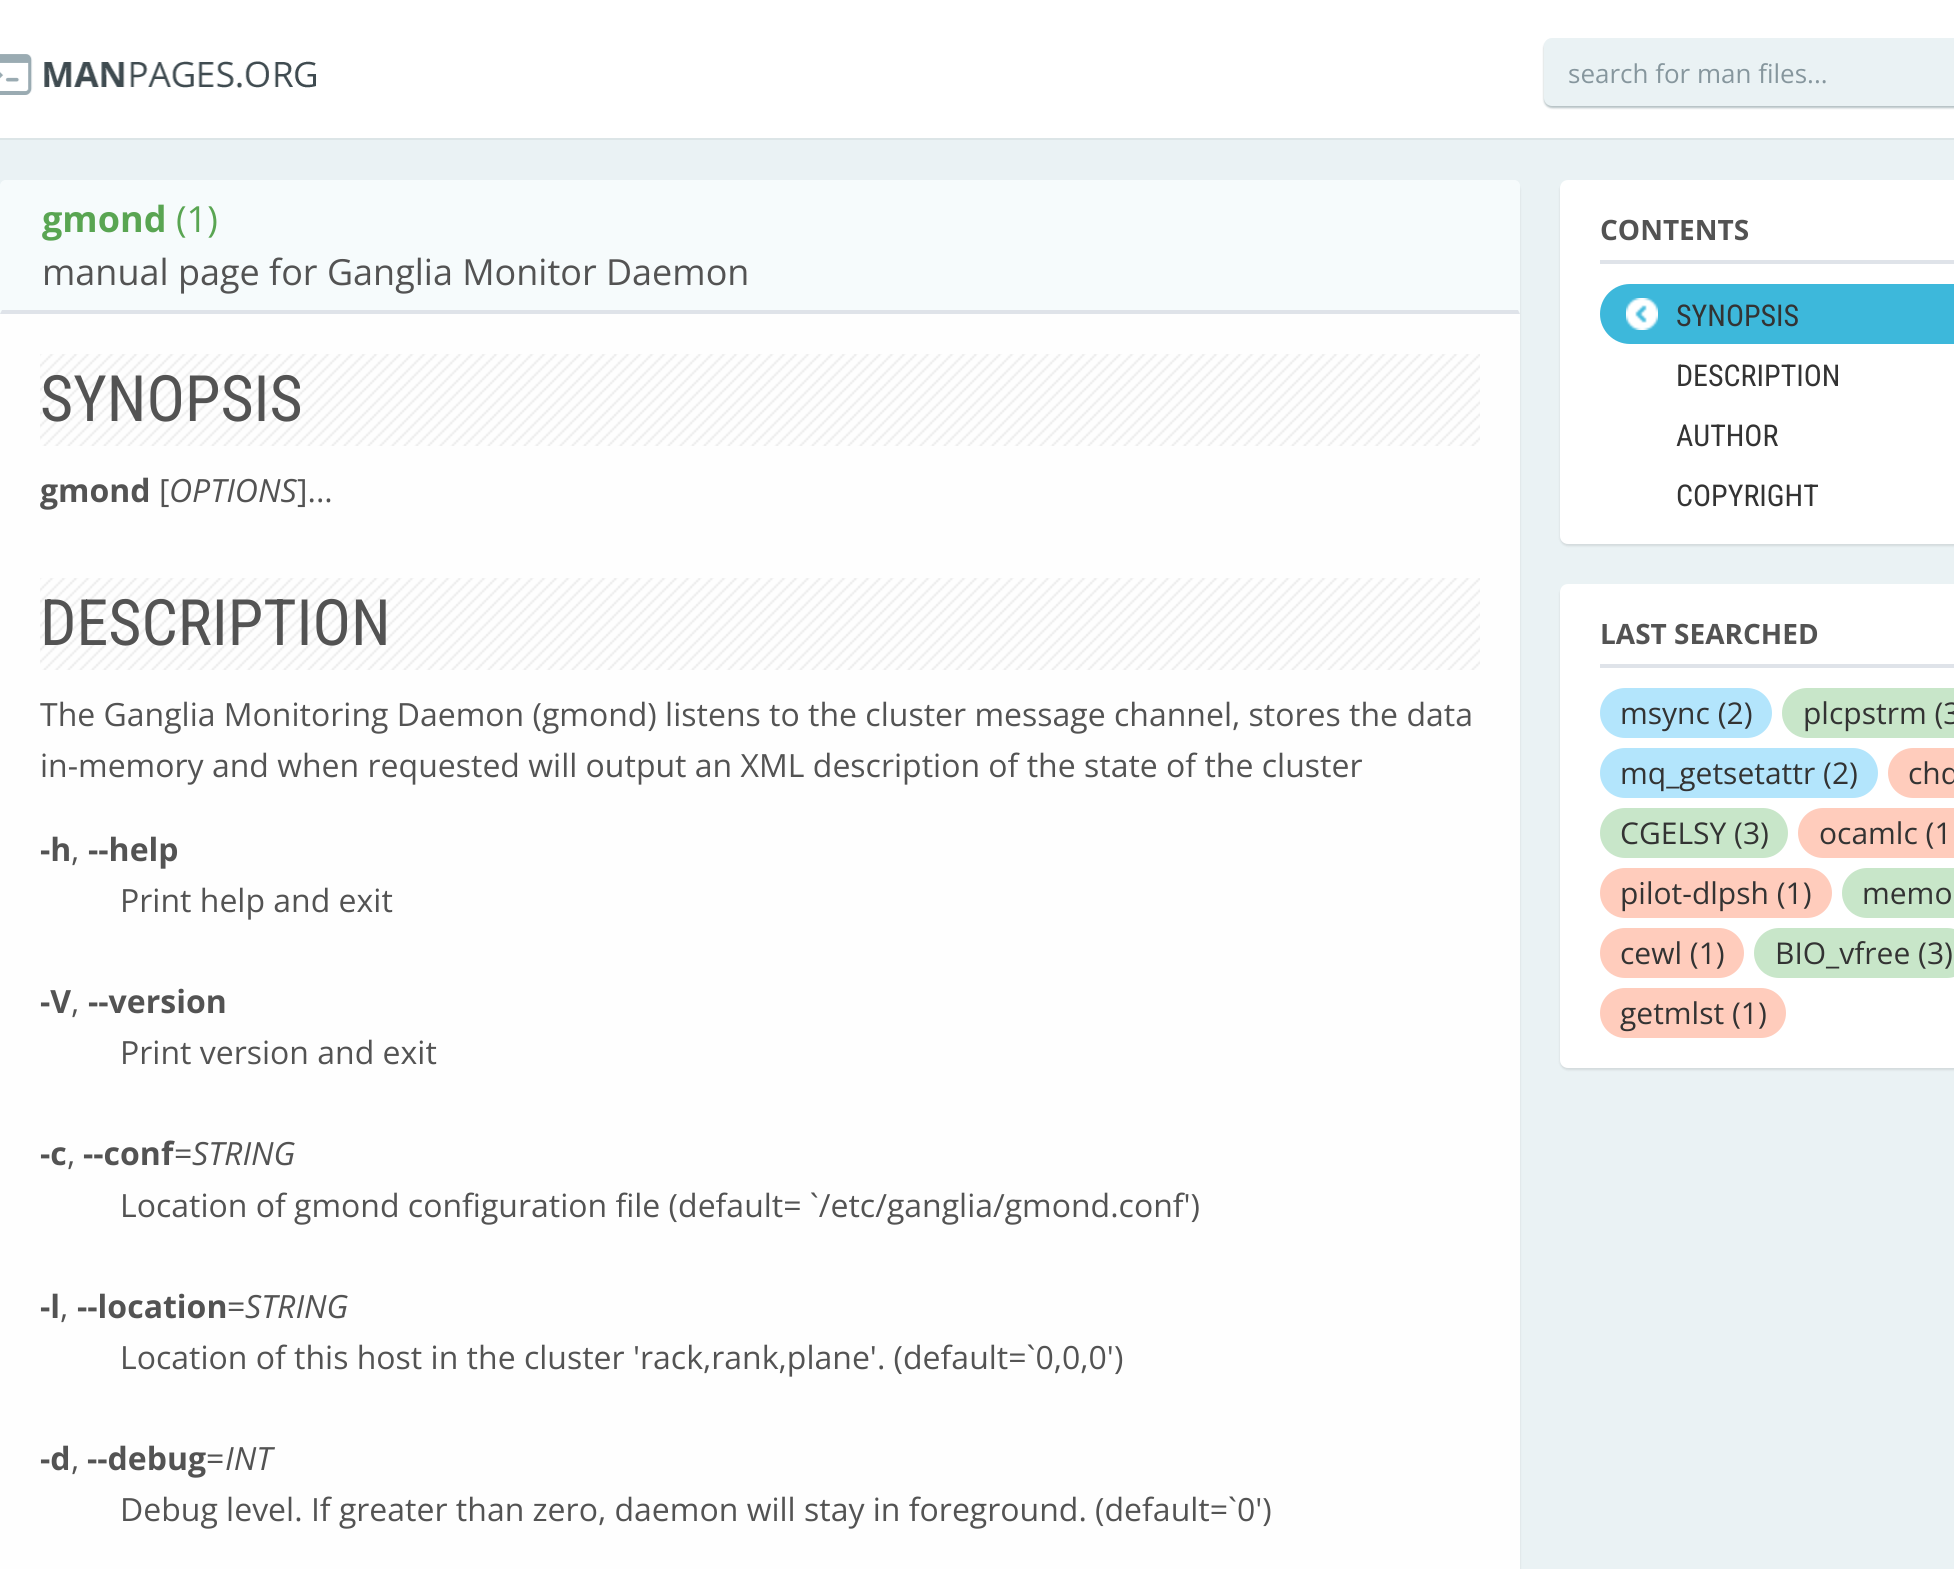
import math
import cairocffi as cairo

surface = cairo.ImageSurface(cairo.FORMAT_RGB24, 1954, 1569)
ctx = cairo.Context(surface)
options = cairo.FontOptions()
options.set_hint_metrics(cairo.HINT_METRICS_OFF)
options.set_hint_style(cairo.HINT_STYLE_NONE)
ctx.set_font_options(options)
ctx.set_miter_limit(4)


def rgb(r, g, b):
    ctx.set_source_rgb(r / 255, g / 255, b / 255)


def face(family, size, italic, bold):
    ctx.select_font_face(family, cairo.FONT_SLANT_ITALIC if italic else cairo.FONT_SLANT_NORMAL, cairo.FONT_WEIGHT_BOLD if bold else cairo.FONT_WEIGHT_NORMAL)
    ctx.set_font_size(size)


def label(x, y, s):
    ctx.move_to(x, y)
    ctx.show_text(s)


def rect(x, y, w, h):
    ctx.rectangle(x, y, w, h)
    ctx.fill()


def rrect(x, y, w, h, r):
    ctx.new_sub_path()
    for i, (u, v) in enumerate([(x + w - r, y + h - r), (x + r, y + h - r), (x + r, y + r), (x + w - r, y + r)]):
        ctx.arc(u, v, r, i * math.pi / 2, (i + 1) * math.pi / 2)
    ctx.close_path()


def soft_shadow(x, y, w, h, r, blur, alpha):
    ctx.push_group_with_content(cairo.CONTENT_ALPHA)
    ctx.set_operator(cairo.OPERATOR_SOURCE)
    for i in range(15, -16, -2):
        e = blur * i / 6
        if min(w, h) + 2 * e > 0:
            ctx.set_source_rgba(0, 0, 0, alpha * math.erfc((i - 1) / 8.5) / 2)
            rrect(x - e, y - e, w + 2 * e, h + 2 * e, max(0, min(r + e + blur * .6, min(w, h) / 2 + e)))
            ctx.fill()
    ctx.mask(ctx.pop_group())


def image(path, x, y, w, h):
    ctx.save()
    ctx.set_source_surface(cairo.ImageSurface.create_from_png(path), x, y)
    ctx.rectangle(x, y, w, h)
    ctx.fill()
    ctx.restore()


rgb(234, 242, 244)
ctx.paint()
rgb(255, 255, 255)
rect(0, 0, 1954, 138)
rgb(220, 229, 231)
rect(0, 138, 1954, 2)
image('image0.png', 0, 54, 316, 41)
rgb(6, 47, 55)
soft_shadow(1544, 40, 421, 68, 8, 1, 0.3)
rgb(234, 242, 244)
rrect(1544, 38, 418, 68, 8)
ctx.fill()
face('Open Sans', 26, 0, 0)
rgb(134, 150, 157)
label(1568, 83, 'search for man files...')
rgb(0, 0, 0)
soft_shadow(0, 182, 1520, 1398, 8, 1, 0.1)
rgb(254, 254, 254)
ctx.new_path()
ctx.move_to(8, 180)
ctx.line_to(1512, 180)
ctx.curve_to(1516.5, 180, 1520, 183.5, 1520, 188)
ctx.line_to(1520, 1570)
ctx.line_to(0, 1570)
ctx.line_to(0, 188)
ctx.curve_to(0, 183.5, 3.5, 180, 8, 180)
ctx.close_path()
ctx.fill()
rgb(246, 251, 252)
ctx.new_path()
ctx.move_to(6, 180)
ctx.line_to(1514, 180)
ctx.curve_to(1517.5, 180, 1520, 182.5, 1520, 186)
ctx.line_to(1520, 314)
ctx.line_to(0, 314)
ctx.line_to(0, 186)
ctx.curve_to(0, 182.5, 2.5, 180, 6, 180)
ctx.close_path()
ctx.fill()
rgb(223, 227, 233)
ctx.new_path()
ctx.move_to(1520, 314)
ctx.line_to(1518, 310)
ctx.line_to(2, 310)
ctx.line_to(0, 314)
ctx.close_path()
ctx.fill()
face('Open Sans', 36, 0, 1)
rgb(89, 165, 82)
label(42, 232, 'gmond')
face('Open Sans', 36, 0, 0)
label(176, 232, '(1)')
rgb(83, 83, 83)
label(42, 285, 'manual page for Ganglia Monitor Daemon')
image('image1.png', 40, 354, 1440, 92)
face('Roboto Condensed', 64, 0, 0)
label(40, 421, 'SYNOPSIS')
face('Open Sans', 32, 0, 1)
label(40, 502, 'gmond')
face('Open Sans', 32, 0, 0)
label(159, 502, '[')
face('Open Sans', 32, 1, 0)
label(169, 502, 'OPTIONS')
face('Open Sans', 32, 0, 0)
label(297, 502, ']...')
image('image1.png', 40, 578, 1440, 92)
face('Roboto Condensed', 64, 0, 0)
label(40, 645, 'DESCRIPTION')
face('Open Sans', 32, 0, 0)
label(40, 726, 'The Ganglia Monitoring Daemon (gmond) listens to the cluster message channel, stores the data')
label(40, 777, 'in-memory and when requested will output an XML description of the state of the cluster')
face('Open Sans', 32, 0, 1)
label(40, 861, '-h')
face('Open Sans', 32, 0, 0)
label(71, 861, ',')
face('Open Sans', 32, 0, 1)
label(88, 861, '--help')
face('Open Sans', 32, 0, 0)
label(120, 912, 'Print help and exit')
face('Open Sans', 32, 0, 1)
label(40, 1013, '-V')
face('Open Sans', 32, 0, 0)
label(71, 1013, ',')
face('Open Sans', 32, 0, 1)
label(88, 1013, '--version')
face('Open Sans', 32, 0, 0)
label(120, 1064, 'Print version and exit')
face('Open Sans', 32, 0, 1)
label(40, 1165, '-c')
label(83, 1165, '--conf')
face('Open Sans', 32, 0, 0)
label(174, 1165, '=')
face('Open Sans', 32, 1, 0)
label(192, 1165, 'STRING')
face('Open Sans', 32, 0, 0)
label(67, 1165, ',')
label(120, 1217, 'Location of gmond configuration file (default= `/etc/ganglia/gmond.conf\')')
face('Open Sans', 32, 0, 1)
label(40, 1318, '-l')
label(77, 1318, '--location')
face('Open Sans', 32, 0, 0)
label(227, 1318, '=')
face('Open Sans', 32, 1, 0)
label(245, 1318, 'STRING')
face('Open Sans', 32, 0, 0)
label(60, 1318, ',')
label(120, 1369, 'Location of this host in the cluster \'rack,rank,plane\'. (default=`0,0,0\')')
face('Open Sans', 32, 0, 1)
label(40, 1470, '-d')
label(87, 1470, '--debug')
face('Open Sans', 32, 0, 0)
label(206, 1470, '=')
face('Open Sans', 32, 1, 0)
label(225, 1470, 'INT')
face('Open Sans', 32, 0, 0)
label(71, 1470, ',')
label(120, 1521, 'Debug level. If greater than zero, daemon will stay in foreground. (default=`0\')')
rgb(0, 0, 0)
soft_shadow(1560, 182, 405, 364, 8, 1, 0.1)
rgb(255, 255, 255)
ctx.new_path()
ctx.move_to(1568, 180)
ctx.line_to(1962, 180)
ctx.line_to(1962, 544)
ctx.line_to(1568, 544)
ctx.curve_to(1563.5, 544, 1560, 540.5, 1560, 536)
ctx.line_to(1560, 188)
ctx.curve_to(1560, 183.5, 1563.5, 180, 1568, 180)
ctx.close_path()
ctx.fill()
rgb(223, 227, 233)
rect(1600, 260, 354, 4)
face('Open Sans', 28, 0, 1)
rgb(83, 83, 83)
label(1600, 240, 'CONTENTS')
rgb(61, 184, 219)
rrect(1600, 284, 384, 60, 30)
ctx.fill()
image('image2.png', 1626, 298, 32, 32)
face('Roboto Condensed', 30, 0, 0)
rgb(51, 51, 51)
label(1676, 326, 'SYNOPSIS')
label(1676, 386, 'DESCRIPTION')
label(1676, 446, 'AUTHOR')
label(1676, 506, 'COPYRIGHT')
rgb(0, 0, 0)
soft_shadow(1560, 586, 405, 484, 8, 1, 0.1)
rgb(255, 255, 255)
ctx.new_path()
ctx.move_to(1568, 584)
ctx.line_to(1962, 584)
ctx.line_to(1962, 1068)
ctx.line_to(1568, 1068)
ctx.curve_to(1563.5, 1068, 1560, 1064.5, 1560, 1060)
ctx.line_to(1560, 592)
ctx.curve_to(1560, 587.5, 1563.5, 584, 1568, 584)
ctx.close_path()
ctx.fill()
rgb(223, 227, 233)
rect(1600, 664, 354, 4)
face('Open Sans', 28, 0, 1)
rgb(83, 83, 83)
label(1600, 644, 'LAST SEARCHED')
rgb(179, 229, 252)
rrect(1600, 688, 172, 50, 25)
ctx.fill()
face('Open Sans', 30, 0, 0)
rgb(51, 51, 51)
label(1620, 724, 'msync (2)')
rgb(200, 230, 201)
rrect(1782, 688, 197, 50, 25)
ctx.fill()
rgb(51, 51, 51)
label(1803, 724, 'plcpstrm (3')
rgb(179, 229, 252)
rrect(1600, 748, 278, 50, 25)
ctx.fill()
rgb(51, 51, 51)
label(1620, 784, 'mq_getsetattr (2)')
rgb(255, 204, 188)
rrect(1888, 748, 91, 50, 25)
ctx.fill()
rgb(51, 51, 51)
label(1908, 784, 'chd')
rgb(200, 230, 201)
rrect(1600, 808, 188, 50, 25)
ctx.fill()
rgb(51, 51, 51)
label(1620, 844, 'CGELSY (3)')
rgb(255, 204, 188)
rrect(1798, 808, 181, 50, 25)
ctx.fill()
rgb(51, 51, 51)
label(1819, 844, 'ocamlc (1')
rgb(255, 204, 188)
rrect(1600, 868, 232, 50, 25)
ctx.fill()
rgb(51, 51, 51)
label(1620, 904, 'pilot-dlpsh (1)')
rgb(200, 230, 201)
rrect(1842, 868, 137, 50, 25)
ctx.fill()
rgb(51, 51, 51)
label(1862, 904, 'memo')
rgb(255, 204, 188)
rrect(1600, 928, 144, 50, 25)
ctx.fill()
rgb(51, 51, 51)
label(1620, 964, 'cewl (1)')
rgb(200, 230, 201)
rrect(1754, 928, 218, 50, 25)
ctx.fill()
rgb(51, 51, 51)
label(1775, 964, 'BIO_vfree (3)')
rgb(255, 204, 188)
rrect(1600, 988, 186, 50, 25)
ctx.fill()
rgb(51, 51, 51)
label(1620, 1024, 'getmlst (1)')
surface.write_to_png('render.png')
